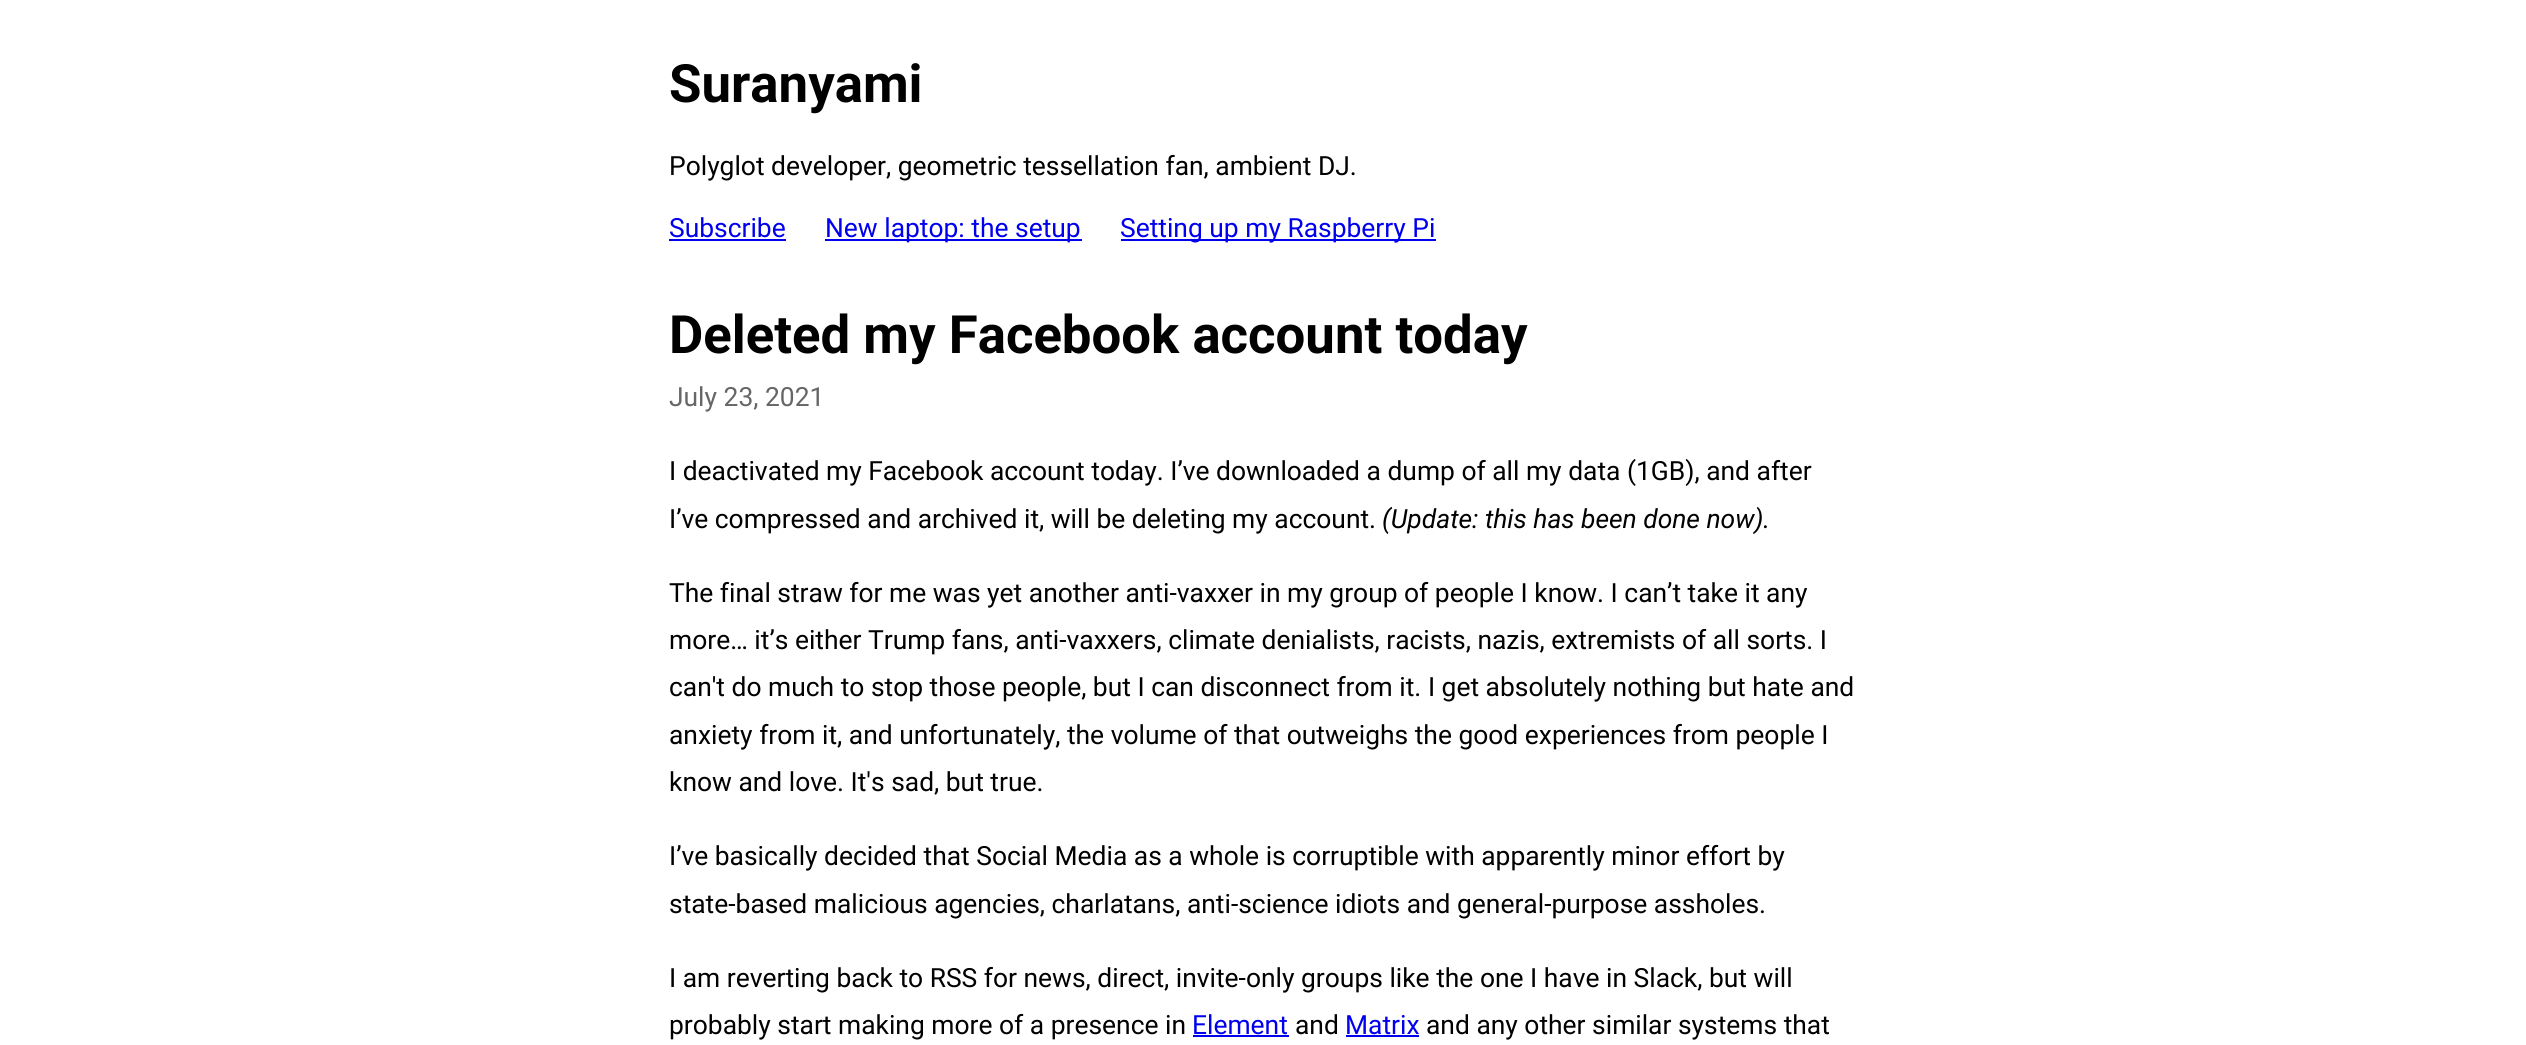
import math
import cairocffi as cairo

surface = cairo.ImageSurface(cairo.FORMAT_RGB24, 2526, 1045)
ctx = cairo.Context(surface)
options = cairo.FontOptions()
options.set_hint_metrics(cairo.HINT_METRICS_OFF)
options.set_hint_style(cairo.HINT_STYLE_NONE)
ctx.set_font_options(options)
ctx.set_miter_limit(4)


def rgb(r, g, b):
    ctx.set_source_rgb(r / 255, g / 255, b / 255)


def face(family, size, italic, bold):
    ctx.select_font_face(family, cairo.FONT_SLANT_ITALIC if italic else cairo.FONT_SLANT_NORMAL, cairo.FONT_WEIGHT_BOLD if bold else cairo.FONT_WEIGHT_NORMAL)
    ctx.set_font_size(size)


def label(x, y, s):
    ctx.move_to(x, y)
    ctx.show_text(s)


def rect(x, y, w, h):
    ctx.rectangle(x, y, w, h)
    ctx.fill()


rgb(255, 255, 255)
ctx.paint()
face('Roboto', 52.75, 0, 1)
rgb(0, 0, 0)
label(669, 102, 'Suranyami')
face('Roboto', 26.4, 0, 0)
label(669, 175, 'Polyglot developer, geometric tessellation fan, ambient DJ.')
rgb(0, 0, 238)
label(669, 237, 'Subscribe')
rect(669, 239, 117, 2)
rect(825, 239, 257, 2)
label(825, 237, 'New laptop: the setup')
rect(1121, 239, 315, 2)
label(1120, 237, 'Setting up my Raspberry Pi')
face('Roboto', 52.75, 0, 1)
rgb(0, 0, 0)
label(669, 353, 'Deleted my Facebook account today')
face('Roboto', 26.4, 0, 0)
rgb(102, 102, 102)
label(669, 406, 'July 23, 2021')
rgb(0, 0, 0)
label(669, 480, 'I deactivated my Facebook account today. I’ve downloaded a dump of all my data (1GB), and after')
label(669, 528, 'I’ve compressed and archived it, will be deleting my account.')
face('Roboto', 26.4, 1, 0)
label(1382, 528, '(Update: this has been done now).')
face('Roboto', 26.4, 0, 0)
label(669, 602, 'The final straw for me was yet another anti-vaxxer in my group of people I know. I can’t take it any')
label(669, 649, 'more… it’s either Trump fans, anti-vaxxers, climate denialists, racists, nazis, extremists of all sorts. I')
label(669, 696, 'can\'t do much to stop those people, but I can disconnect from it. I get absolutely nothing but hate and')
label(669, 744, 'anxiety from it, and unfortunately, the volume of that outweighs the good experiences from people I')
label(669, 791, 'know and love. It\'s sad, but true.')
label(669, 865, 'I’ve basically decided that Social Media as a whole is corruptible with apparently minor effort by')
label(669, 913, 'state-based malicious agencies, charlatans, anti-science idiots and general-purpose assholes.')
label(669, 987, 'I am reverting back to RSS for news, direct, invite-only groups like the one I have in Slack, but will')
label(669, 1034, 'probably start making more of a presence in')
rgb(0, 0, 238)
label(1192, 1034, 'Element')
rect(1193, 1035, 96, 2)
rgb(0, 0, 0)
label(1295, 1034, 'and')
rgb(0, 0, 238)
label(1345, 1034, 'Matrix')
rect(1346, 1035, 73, 2)
rgb(0, 0, 0)
label(1426, 1034, 'and any other similar systems that')
surface.write_to_png('render.png')
